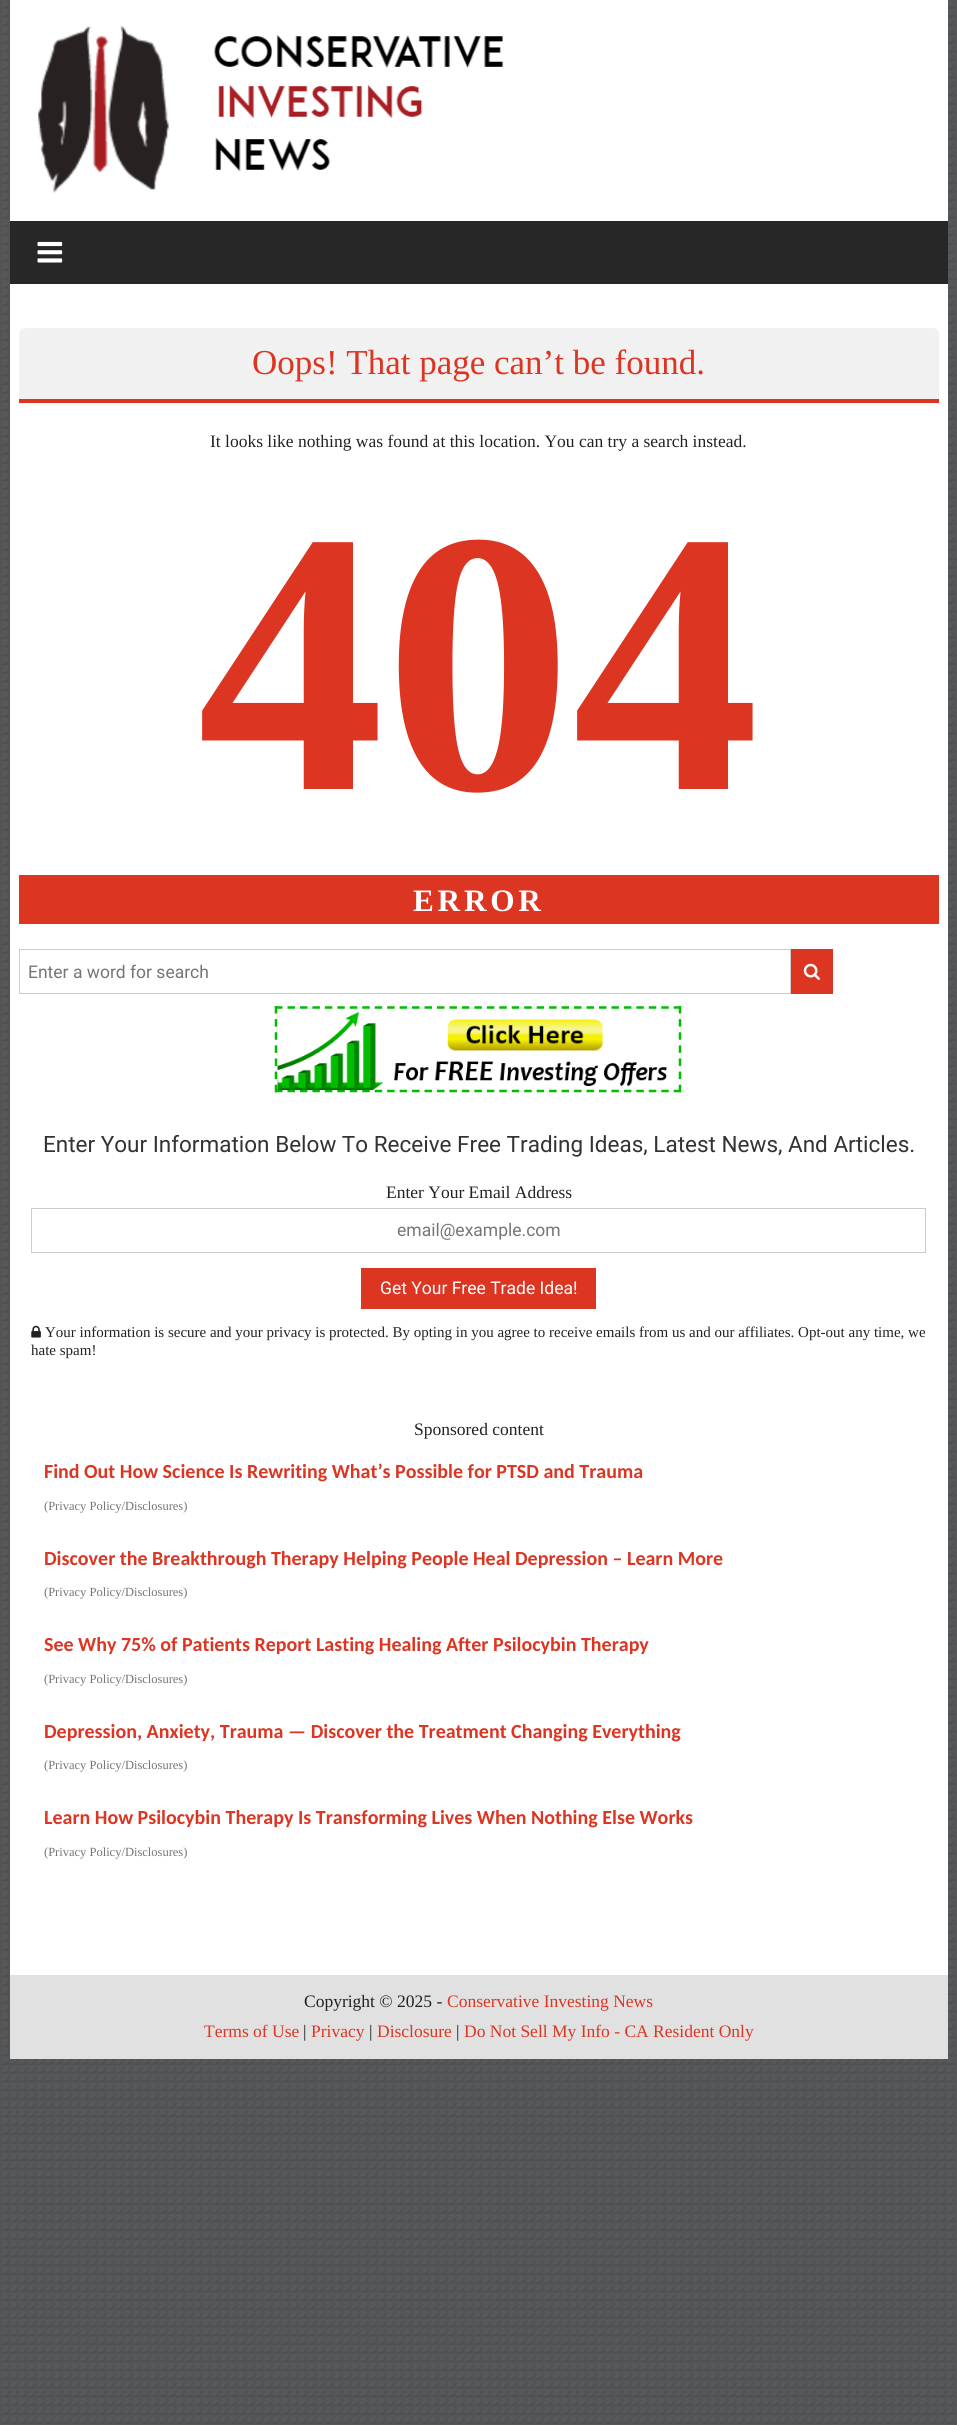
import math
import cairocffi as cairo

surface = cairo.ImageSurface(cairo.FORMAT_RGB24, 957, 2425)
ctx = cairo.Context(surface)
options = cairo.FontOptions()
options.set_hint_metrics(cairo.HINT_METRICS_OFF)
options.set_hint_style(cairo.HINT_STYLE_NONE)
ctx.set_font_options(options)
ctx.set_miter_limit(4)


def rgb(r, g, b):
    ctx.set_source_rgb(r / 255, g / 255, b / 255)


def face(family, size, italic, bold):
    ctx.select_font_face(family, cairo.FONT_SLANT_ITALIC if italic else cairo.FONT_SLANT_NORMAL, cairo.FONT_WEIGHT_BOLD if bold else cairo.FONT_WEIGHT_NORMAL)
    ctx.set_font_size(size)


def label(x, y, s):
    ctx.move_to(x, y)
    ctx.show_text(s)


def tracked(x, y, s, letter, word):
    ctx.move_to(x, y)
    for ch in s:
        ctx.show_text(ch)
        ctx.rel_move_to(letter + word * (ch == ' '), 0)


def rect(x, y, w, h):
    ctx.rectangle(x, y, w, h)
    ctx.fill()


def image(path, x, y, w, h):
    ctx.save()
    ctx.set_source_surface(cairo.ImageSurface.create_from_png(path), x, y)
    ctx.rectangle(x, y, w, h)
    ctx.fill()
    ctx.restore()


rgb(255, 255, 255)
ctx.paint()
image('image0.png', 0, 0, 957, 2425)
rgb(255, 255, 255)
rect(10, 0, 938, 1975)
image('image1.png', 37, 25, 467, 168)
rgb(39, 39, 39)
rect(10, 221, 938, 63)
image('image2.png', 37, 241, 26, 22)
rgb(241, 241, 241)
ctx.new_path()
ctx.move_to(25, 328)
ctx.line_to(933, 328)
ctx.curve_to(936.5, 328, 939, 330.5, 939, 334)
ctx.line_to(939, 403)
ctx.line_to(19, 403)
ctx.line_to(19, 334)
ctx.curve_to(19, 330.5, 21.5, 328, 25, 328)
ctx.close_path()
ctx.fill()
rgb(220, 53, 34)
rect(19, 399, 920, 4)
face('Liberation Serif', 35, 0, 0)
label(252, 374, 'Oops! That page can’t be found.')
face('Liberation Serif', 17.5, 0, 0)
rgb(34, 34, 34)
label(210, 447, 'It looks like nothing was found at this location. You can try a search instead.')
face('Liberation Serif', 375, 0, 1)
rgb(220, 53, 34)
label(197, 789, '404')
rect(19, 875, 920, 49)
face('Liberation Serif', 31.25, 0, 1)
rgb(255, 255, 255)
tracked(413, 911, 'ERROR', 3.75, 0)
ctx.rectangle(19.5, 949.5, 771, 44)
rgb(204, 204, 204)
ctx.set_line_width(1)
ctx.stroke()
face('Roboto', 17.5, 0, 0)
rgb(117, 117, 117)
label(28, 978, 'Enter a word for search')
rgb(220, 53, 34)
rect(791, 949, 42, 45)
image('image3.png', 803, 963, 17, 17)
ctx.new_path()
ctx.move_to(275, 1007.5)
ctx.line_to(681, 1007.5)
rgb(1, 189, 1)
ctx.set_line_width(2.5)
ctx.set_dash([7.5, 4.96])
ctx.stroke()
ctx.new_path()
ctx.move_to(680, 1006)
ctx.line_to(680, 1092.5)
ctx.set_dash([7.5, 5.62])
ctx.stroke()
ctx.new_path()
ctx.move_to(275, 1091)
ctx.line_to(681, 1091)
ctx.set_dash([7.5, 4.96])
ctx.stroke()
ctx.new_path()
ctx.move_to(276, 1006)
ctx.line_to(276, 1092.5)
ctx.set_dash([7.5, 5.62])
ctx.stroke()
image('image4.png', 277, 1012, 390, 78)
face('Roboto', 22.5, 0, 0)
rgb(51, 51, 51)
label(43, 1152, 'Enter Your Information Below To Receive Free Trading Ideas, Latest News, And Articles.')
face('Liberation Serif', 17.5, 0, 0)
rgb(34, 34, 34)
label(386, 1198, 'Enter Your Email Address')
ctx.rectangle(31.5, 1208.5, 894, 44)
rgb(204, 204, 204)
ctx.set_line_width(1)
ctx.set_dash([])
ctx.stroke()
face('Roboto', 17.5, 0, 0)
rgb(117, 117, 117)
label(397, 1236, 'email@example.com')
rgb(220, 53, 34)
rect(361, 1268, 235, 41)
rgb(255, 255, 255)
label(380, 1294, 'Get Your Free Trade Idea!')
image('image5.png', 31, 1325, 10, 13)
face('Liberation Serif', 15, 0, 0)
rgb(34, 34, 34)
label(45, 1337, 'Your information is secure and your privacy is protected. By opting in you agree to receive emails from us and our affiliates. Opt-out any time, we')
label(31, 1355, 'hate spam!')
face('Liberation Serif', 17.5, 0, 0)
label(414, 1435, 'Sponsored content')
face('Carlito', 20, 0, 1)
rgb(220, 53, 34)
label(44, 1478, 'Find Out How Science Is Rewriting What’s Possible for PTSD and Trauma')
face('Liberation Serif', 12.5, 0, 0)
rgb(117, 117, 117)
label(44, 1510, '(Privacy Policy/Disclosures)')
face('Carlito', 20, 0, 1)
rgb(220, 53, 34)
label(44, 1565, 'Discover the Breakthrough Therapy Helping People Heal Depression – Learn More')
face('Liberation Serif', 12.5, 0, 0)
rgb(117, 117, 117)
label(44, 1596, '(Privacy Policy/Disclosures)')
face('Carlito', 20, 0, 1)
rgb(220, 53, 34)
label(44, 1651, 'See Why 75% of Patients Report Lasting Healing After Psilocybin Therapy')
face('Liberation Serif', 12.5, 0, 0)
rgb(117, 117, 117)
label(44, 1683, '(Privacy Policy/Disclosures)')
face('Carlito', 20, 0, 1)
rgb(220, 53, 34)
label(44, 1738, 'Depression, Anxiety, Trauma — Discover the Treatment Changing Everything')
face('Liberation Serif', 12.5, 0, 0)
rgb(117, 117, 117)
label(44, 1769, '(Privacy Policy/Disclosures)')
face('Carlito', 20, 0, 1)
rgb(220, 53, 34)
label(44, 1824, 'Learn How Psilocybin Therapy Is Transforming Lives When Nothing Else Works')
face('Liberation Serif', 12.5, 0, 0)
rgb(117, 117, 117)
label(44, 1856, '(Privacy Policy/Disclosures)')
rgb(225, 225, 225)
rect(10, 1975, 938, 84)
face('Liberation Serif', 17.5, 0, 0)
rgb(34, 34, 34)
label(304, 2007, 'Copyright © 2025 -')
rgb(220, 53, 34)
label(447, 2007, 'Conservative Investing News')
label(204, 2037, 'Terms of Use')
rgb(34, 34, 34)
label(303, 2037, '|')
rgb(220, 53, 34)
label(311, 2037, 'Privacy')
rgb(34, 34, 34)
label(369, 2037, '|')
rgb(220, 53, 34)
label(377, 2037, 'Disclosure')
rgb(34, 34, 34)
label(456, 2037, '|')
rgb(220, 53, 34)
label(464, 2037, 'Do Not Sell My Info - CA Resident Only')
surface.write_to_png('render.png')
